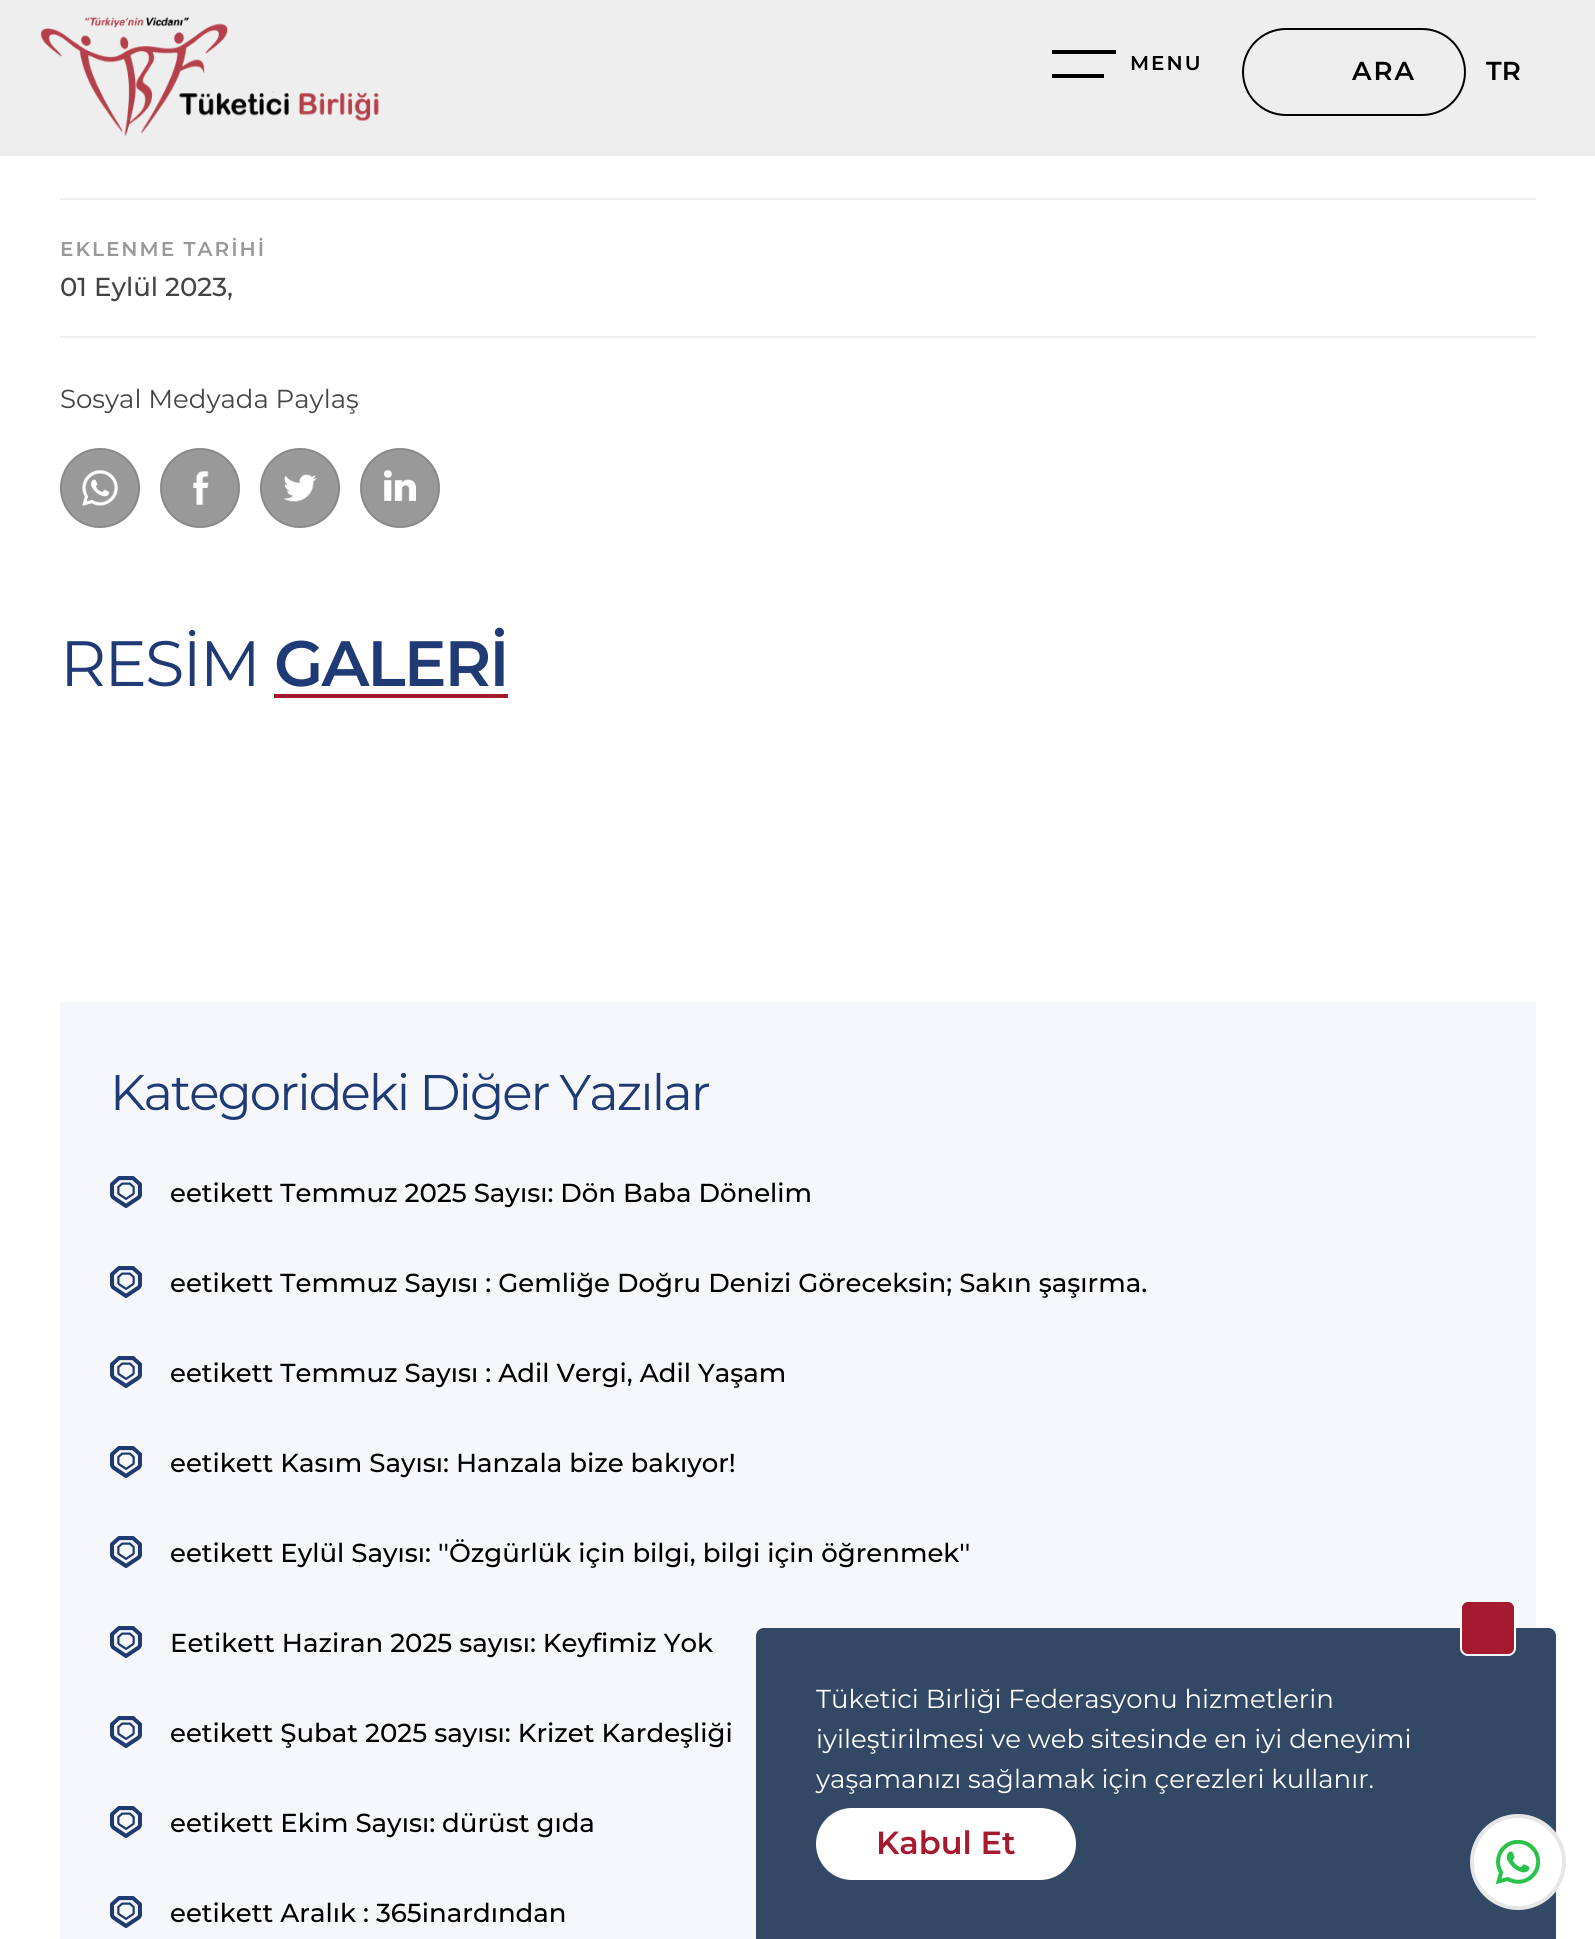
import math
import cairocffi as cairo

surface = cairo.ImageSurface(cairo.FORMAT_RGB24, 1595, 1939)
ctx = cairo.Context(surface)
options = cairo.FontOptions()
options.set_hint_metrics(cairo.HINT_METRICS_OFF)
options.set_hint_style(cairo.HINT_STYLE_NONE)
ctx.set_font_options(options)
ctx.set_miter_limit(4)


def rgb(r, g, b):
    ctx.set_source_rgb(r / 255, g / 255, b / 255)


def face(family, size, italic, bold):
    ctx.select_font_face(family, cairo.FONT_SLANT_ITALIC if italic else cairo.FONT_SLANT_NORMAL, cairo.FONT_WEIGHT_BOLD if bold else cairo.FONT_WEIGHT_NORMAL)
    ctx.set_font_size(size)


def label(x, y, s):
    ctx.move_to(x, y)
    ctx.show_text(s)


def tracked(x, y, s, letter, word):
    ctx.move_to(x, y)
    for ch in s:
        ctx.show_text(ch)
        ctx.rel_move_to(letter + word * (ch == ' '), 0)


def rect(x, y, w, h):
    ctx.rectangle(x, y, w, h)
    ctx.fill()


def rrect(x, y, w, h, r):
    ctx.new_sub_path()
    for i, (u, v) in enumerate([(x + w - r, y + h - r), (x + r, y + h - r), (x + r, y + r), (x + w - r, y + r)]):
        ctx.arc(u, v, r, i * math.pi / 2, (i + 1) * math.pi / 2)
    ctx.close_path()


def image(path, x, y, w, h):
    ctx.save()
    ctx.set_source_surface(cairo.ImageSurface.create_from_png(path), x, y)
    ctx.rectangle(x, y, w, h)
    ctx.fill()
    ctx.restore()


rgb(255, 255, 255)
ctx.paint()
rgb(238, 238, 238)
rect(0, 0, 1595, 156)
image('image0.png', 40, 17, 339, 119)
rgb(0, 0, 0)
rect(1052, 50, 64, 4)
rect(1052, 74, 52, 4)
face('Montserrat SemiBold', 20, 0, 0)
tracked(1130, 70, 'MENU', 2, 0)
rrect(1243, 29, 222, 86, 43)
ctx.stroke()
face('Montserrat SemiBold', 26, 0, 0)
tracked(1352, 80, 'ARA', 2, 0)
label(1486, 80, 'TR')
rgb(240, 240, 240)
rect(60, 198, 1476, 2)
rect(60, 336, 1476, 2)
face('Montserrat SemiBold', 20, 0, 0)
rgb(153, 153, 153)
tracked(60, 256, 'EKLENME TARİHİ', 2, 0)
face('Montserrat Medium', 26, 0, 0)
rgb(68, 68, 68)
label(60, 296, '01 Eylül 2023,')
face('Montserrat', 26, 0, 0)
label(60, 408, 'Sosyal Medyada Paylaş')
rgb(153, 153, 153)
ctx.new_path()
ctx.arc(100, 488, 40, 0, 2 * math.pi)
ctx.fill()
ctx.arc(100, 488, 39, 0, 2 * math.pi)
ctx.set_source_rgba(0, 0, 0, 0.1)
ctx.stroke()
image('image1.png', 82, 470, 36, 36)
rgb(153, 153, 153)
ctx.arc(200, 488, 40, 0, 2 * math.pi)
ctx.fill()
ctx.arc(200, 488, 39, 0, 2 * math.pi)
ctx.set_source_rgba(0, 0, 0, 0.1)
ctx.stroke()
image('image2.png', 193, 471, 16, 34)
rgb(153, 153, 153)
ctx.arc(300, 488, 40, 0, 2 * math.pi)
ctx.fill()
ctx.arc(300, 488, 39, 0, 2 * math.pi)
ctx.set_source_rgba(0, 0, 0, 0.1)
ctx.stroke()
image('image3.png', 283, 474, 34, 28)
rgb(153, 153, 153)
ctx.arc(400, 488, 40, 0, 2 * math.pi)
ctx.fill()
ctx.arc(400, 488, 39, 0, 2 * math.pi)
ctx.set_source_rgba(0, 0, 0, 0.1)
ctx.stroke()
image('image4.png', 384, 470, 32, 31)
face('Montserrat', 64, 0, 0)
rgb(31, 58, 116)
tracked(60, 686, 'RESİM', -2, 0)
face('Montserrat SemiBold', 64, 0, 0)
tracked(274, 686, 'GALERİ', -2, 0)
rgb(166, 25, 47)
rect(274, 694, 234, 4)
rgb(246, 247, 250)
rect(60, 1002, 1476, 937)
face('Montserrat', 50, 0, 0)
rgb(31, 58, 116)
tracked(110, 1110, 'Kategorideki Diğer Yazılar', -2, 0)
image('image5.png', 110, 1176, 32, 32)
face('Montserrat Medium', 26, 0, 0)
rgb(0, 0, 0)
label(170, 1202, 'eetikett Temmuz 2025 Sayısı: Dön Baba Dönelim')
image('image5.png', 110, 1266, 32, 32)
label(170, 1292, 'eetikett Temmuz Sayısı : Gemliğe Doğru Denizi Göreceksin; Sakın şaşırma.')
image('image5.png', 110, 1356, 32, 32)
label(170, 1382, 'eetikett Temmuz Sayısı : Adil Vergi, Adil Yaşam')
image('image5.png', 110, 1446, 32, 32)
label(170, 1472, 'eetikett Kasım Sayısı: Hanzala bize bakıyor!')
image('image5.png', 110, 1536, 32, 32)
label(170, 1562, 'eetikett Eylül Sayısı: \'\'Özgürlük için bilgi, bilgi için öğrenmek\'\'')
image('image5.png', 110, 1626, 32, 32)
label(170, 1652, 'Eetikett Haziran 2025 sayısı: Keyfimiz Yok')
image('image5.png', 110, 1716, 32, 32)
label(170, 1742, 'eetikett Şubat 2025 sayısı: Krizet Kardeşliği')
image('image5.png', 110, 1806, 32, 32)
label(170, 1832, 'eetikett Ekim Sayısı: dürüst gıda')
image('image5.png', 110, 1896, 32, 32)
label(170, 1922, 'eetikett Aralık : 365inardından')
ctx.set_source_rgba(0.063, 0.161, 0.294, 0.85)
ctx.new_path()
ctx.move_to(764, 1628)
ctx.line_to(1548, 1628)
ctx.curve_to(1552.5, 1628, 1556, 1631.5, 1556, 1636)
ctx.line_to(1556, 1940)
ctx.line_to(756, 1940)
ctx.line_to(756, 1636)
ctx.curve_to(756, 1631.5, 759.5, 1628, 764, 1628)
ctx.close_path()
ctx.fill()
rgb(255, 255, 255)
ctx.arc(1518, 1862, 48, 0, 2 * math.pi)
ctx.fill()
ctx.arc(1518, 1862, 46, 0, 2 * math.pi)
ctx.set_source_rgba(0, 0, 0, 0.1)
ctx.set_line_width(4)
ctx.stroke()
image('image6.png', 1496, 1840, 44, 44)
rgb(166, 25, 47)
rrect(1461, 1601, 54, 54, 7)
ctx.fill_preserve()
rgb(255, 255, 255)
ctx.set_line_width(2)
ctx.stroke()
face('Montserrat', 26, 0, 0)
label(816, 1708, 'Tüketici Birliği Federasyonu hizmetlerin')
label(816, 1748, 'iyileştirilmesi ve web sitesinde en iyi deneyimi')
label(816, 1788, 'yaşamanızı sağlamak için çerezleri kullanır.')
rrect(816, 1808, 260, 72, 36)
ctx.fill()
face('Montserrat SemiBold', 32, 0, 0)
rgb(166, 25, 47)
label(876, 1854, 'Kabul Et')
surface.write_to_png('render.png')
